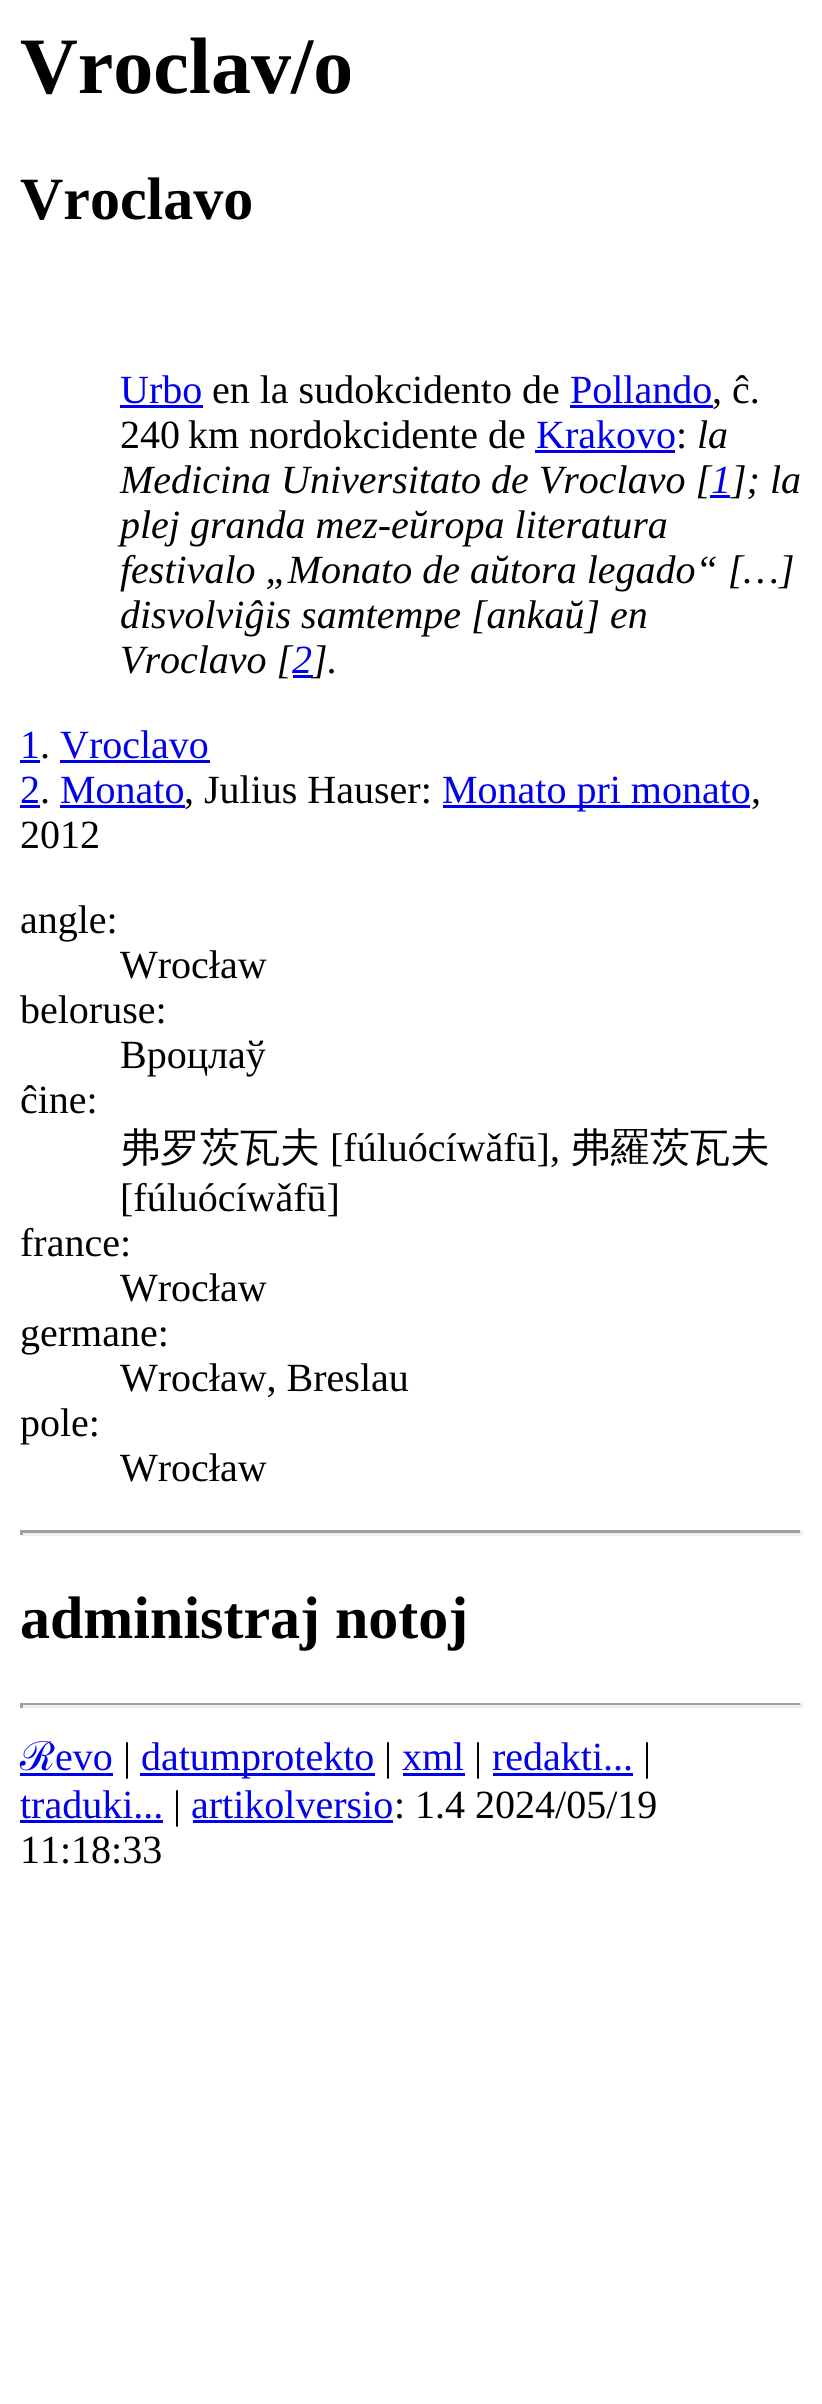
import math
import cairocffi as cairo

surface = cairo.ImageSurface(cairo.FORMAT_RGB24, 822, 2404)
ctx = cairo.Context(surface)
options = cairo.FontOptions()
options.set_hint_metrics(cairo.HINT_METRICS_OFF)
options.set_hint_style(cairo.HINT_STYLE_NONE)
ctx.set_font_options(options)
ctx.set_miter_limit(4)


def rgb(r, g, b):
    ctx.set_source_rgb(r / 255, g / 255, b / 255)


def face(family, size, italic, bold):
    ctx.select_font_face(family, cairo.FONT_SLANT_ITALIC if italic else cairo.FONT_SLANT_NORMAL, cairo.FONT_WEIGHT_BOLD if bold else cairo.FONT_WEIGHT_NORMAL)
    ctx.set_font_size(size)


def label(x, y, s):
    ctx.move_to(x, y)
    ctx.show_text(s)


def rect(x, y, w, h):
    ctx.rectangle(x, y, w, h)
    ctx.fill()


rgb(255, 255, 255)
ctx.paint()
face('Liberation Serif', 80, 0, 1)
rgb(0, 0, 0)
label(20, 93, 'Vroclav/o')
face('Liberation Serif', 60, 0, 1)
label(20, 219, 'Vroclavo')
face('Liberation Serif', 40, 0, 0)
rgb(0, 0, 238)
label(120, 403, 'Urbo')
rect(120, 405, 83, 3)
rgb(0, 0, 0)
label(212, 403, 'en la sudokcidento de')
rgb(0, 0, 238)
label(570, 403, 'Pollando')
rgb(0, 0, 0)
label(712, 403, ', ĉ.')
rgb(0, 0, 238)
rect(570, 405, 143, 3)
rgb(0, 0, 0)
label(120, 448, '240 km nordokcidente de')
rgb(0, 0, 238)
label(536, 448, 'Krakovo')
rgb(0, 0, 0)
label(676, 448, ':')
rgb(0, 0, 238)
rect(535, 450, 140, 3)
face('Liberation Serif', 40, 1, 0)
rgb(0, 0, 0)
label(697, 448, 'la')
label(120, 493, 'Medicina Universitato de Vroclavo [')
rgb(0, 0, 238)
label(711, 493, '1')
rgb(0, 0, 0)
label(731, 493, ']; la')
rgb(0, 0, 238)
rect(710, 495, 20, 3)
rgb(0, 0, 0)
label(120, 538, 'plej granda mez-eŭropa literatura')
label(120, 583, 'festivalo „Monato de aŭtora legado“ […]')
label(120, 628, 'disvolviĝis samtempe [ankaŭ] en')
label(120, 673, 'Vroclavo [')
rgb(0, 0, 238)
rect(293, 675, 20, 3)
label(292, 673, '2')
rgb(0, 0, 0)
label(312, 673, '].')
face('Liberation Serif', 40, 0, 0)
rgb(0, 0, 238)
label(20, 758, '1')
rgb(0, 0, 0)
label(40, 758, '.')
rgb(0, 0, 238)
rect(20, 760, 20, 3)
rect(60, 760, 150, 3)
label(60, 758, 'Vroclavo')
label(20, 803, '2')
rgb(0, 0, 0)
label(40, 803, '.')
rgb(0, 0, 238)
rect(20, 805, 20, 3)
rect(60, 805, 125, 3)
label(60, 803, 'Monato')
rgb(0, 0, 0)
label(184, 803, ', Julius Hauser:')
rgb(0, 0, 238)
rect(443, 805, 307, 3)
label(442, 803, 'Monato pri monato')
rgb(0, 0, 0)
label(751, 803, ',')
label(20, 848, '2012')
label(20, 933, 'angle:')
label(120, 978, 'Wrocław')
label(20, 1023, 'beloruse:')
label(120, 1068, 'Вроцлаў')
label(20, 1113, 'ĉine:')
face('WenQuanYi Zen Hei Medium', 40, 0, 0)
label(120, 1161, '弗罗茨瓦夫')
face('Liberation Serif', 40, 0, 0)
label(330, 1161, '[fúluócíwǎfū],')
face('WenQuanYi Zen Hei Medium', 40, 0, 0)
label(570, 1161, '弗羅茨瓦夫')
face('Liberation Serif', 40, 0, 0)
label(120, 1211, '[fúluócíwǎfū]')
label(20, 1256, 'france:')
label(120, 1301, 'Wrocław')
label(20, 1346, 'germane:')
label(120, 1391, 'Wrocław, Breslau')
label(20, 1436, 'pole:')
label(120, 1481, 'Wrocław')
rgb(159, 159, 159)
rect(20, 1530, 783, 3)
rgb(238, 238, 238)
rect(800, 1530, 3, 5)
rect(20, 1533, 783, 3)
rgb(159, 159, 159)
rect(20, 1530, 3, 5)
face('Liberation Serif', 60, 0, 1)
rgb(0, 0, 0)
label(20, 1638, 'administraj notoj')
rgb(159, 159, 159)
rect(20, 1703, 783, 2)
rgb(238, 238, 238)
rect(800, 1703, 3, 5)
rect(20, 1705, 783, 3)
rgb(159, 159, 159)
rect(20, 1703, 3, 5)
face('Noto Sans', 40, 0, 0)
rgb(0, 0, 238)
label(20, 1770, 'ℛ')
face('Liberation Serif', 40, 0, 0)
label(55, 1770, 'evo')
rect(20, 1773, 93, 3)
rgb(0, 0, 0)
label(123, 1770, '|')
rgb(0, 0, 238)
rect(140, 1773, 235, 3)
label(141, 1770, 'datumprotekto')
rgb(0, 0, 0)
label(384, 1770, '|')
rgb(0, 0, 238)
label(402, 1770, 'xml')
rect(403, 1773, 62, 3)
rgb(0, 0, 0)
label(474, 1770, '|')
rgb(0, 0, 238)
label(492, 1770, 'redakti...')
rect(493, 1773, 140, 3)
rgb(0, 0, 0)
label(643, 1770, '|')
rgb(0, 0, 238)
label(20, 1818, 'traduki...')
rect(20, 1820, 143, 3)
rgb(0, 0, 0)
label(173, 1818, '|')
rgb(0, 0, 238)
label(191, 1818, 'artikolversio')
rect(193, 1820, 200, 3)
rgb(0, 0, 0)
label(394, 1818, ': 1.4 2024/05/19')
label(20, 1863, '11:18:33')
surface.write_to_png('render.png')
